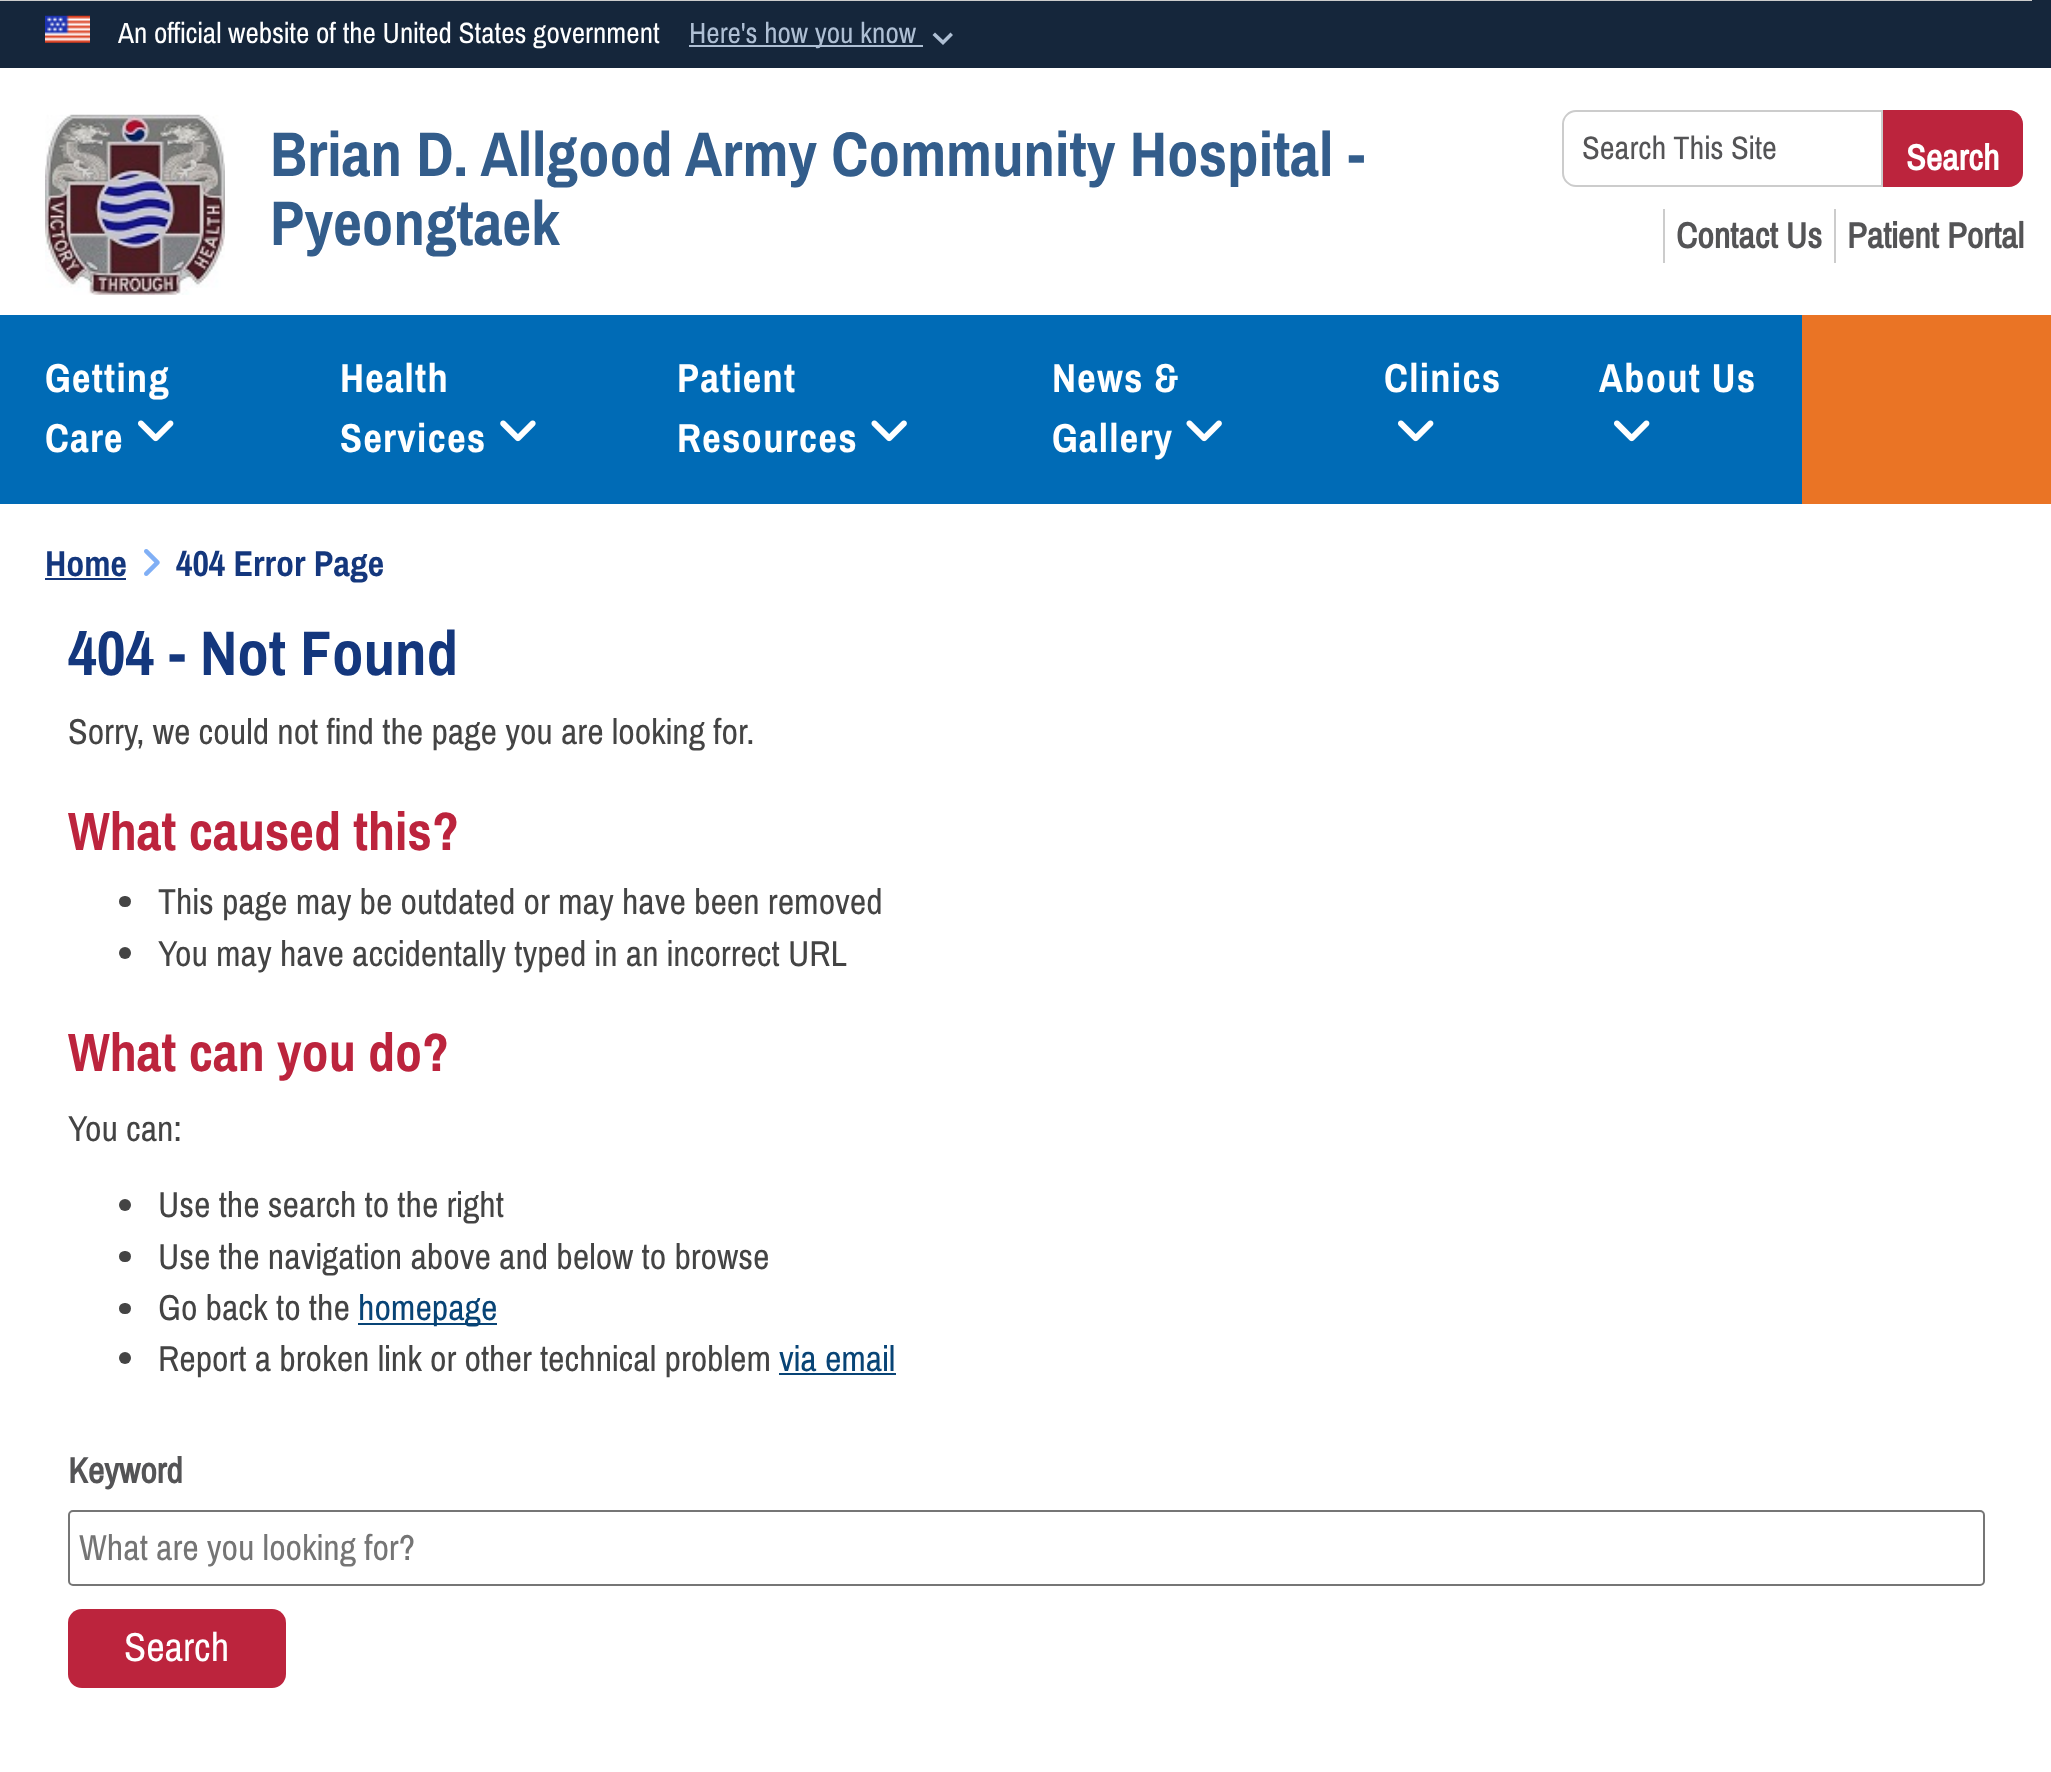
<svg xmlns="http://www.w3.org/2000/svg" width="2051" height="1772">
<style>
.a{font:29.25px Archivo Narrow;fill:#fff}
.b{font:29.25px Archivo Narrow;fill:#aebfd4}
.c{font:bold 63px Archivo Narrow;fill:#335d8b}
.d{font:32.5px Archivo Narrow;fill:#545456}
.e{font:bold 36px 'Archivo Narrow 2';fill:#fff}
.f{font:bold 36px 'Archivo Narrow 2';fill:#545456}
.g{font:bold 40.5px Archivo Narrow;letter-spacing:1.25px;fill:#fff}
.h{font:bold 36px Archivo Narrow;fill:#14377d}
.i{font:bold 63px Archivo Narrow;fill:#14377d}
.j{font:36px Archivo Narrow;fill:#444}
.k{font:bold 54px Archivo Narrow;fill:#bc243d}
.l{font:36px Archivo Narrow;fill:#084476}
.m{font:36px Archivo Narrow;fill:#757575}
.n{font:40.5px Archivo Narrow;fill:#fff}
</style>
<rect width="100%" height="100%" fill="#fff"/>
<path fill="#15263b" d="M0 0h2051v68H0z"/>
<image href="1.png" x="45" y="15" width="45" height="28"/>
<path fill="#aebfd4" d="M689 45h234v2H689z"/>
<path fill="#aebfd4" d="M950.5 32.5l-7.5 7.5l-8-7.5l-2.5 2.5l10.5 10l10-10z"/>
<path fill="#ccc" d="M0 0h2032v1H0z"/>
<image href="2.png" x="45" y="114" width="180" height="181"/>
<path fill="none" stroke="#ccc" stroke-width="2" d="M1576 111h306v75h-306c-7 0-13-6-13-13v-49c0-7 6-13 13-13z"/>
<path fill="#bc243d" d="M1883 110h126c7.5 0 14 6.5 14 14v49c0 7.5-6.5 14-14 14h-126z"/>
<path fill="#ccc" d="M1663 209h2v54H1663z"/>
<path fill="#ccc" d="M1834 209h2v54H1834z"/>
<path fill="#006bb6" d="M0 315h1802v189H0z"/>
<image href="3.png" x="138" y="420" width="36" height="22"/>
<image href="4.png" x="500" y="420" width="36" height="22"/>
<image href="5.png" x="871" y="420" width="36" height="22"/>
<image href="5.png" x="1186" y="420" width="36" height="22"/>
<image href="3.png" x="1398" y="420" width="36" height="22"/>
<image href="3.png" x="1614" y="420" width="36" height="22"/>
<path fill="#ea7425" d="M1802 315h249v189H1802z"/>
<path fill="#14377d" d="M45 578h81v2H45z"/>
<image href="6.png" x="144" y="549" width="16" height="27"/>
<rect fill="#444" x="119" y="896" width="12" height="11" rx="5.5"/>
<circle fill="#444" cx="125" cy="953" r="6"/>
<circle fill="#444" cx="125" cy="1205" r="6"/>
<rect fill="#444" x="119" y="1251" width="12" height="11" rx="5.5"/>
<rect fill="#444" x="119" y="1303" width="12" height="11" rx="5.5"/>
<path fill="#084476" d="M358 1323h139v2H358z"/>
<circle fill="#444" cx="125" cy="1358" r="6"/>
<path fill="#084476" d="M779 1373h117v2H779z"/>
<rect fill="none" stroke="#767676" stroke-width="2" x="69" y="1511" width="1915" height="74" rx="4"/>
<rect fill="#bc243d" x="68" y="1609" width="218" height="79" rx="14"/>
<text class="a" x="118" y="43">An official website of the United States government</text>
<text class="b" x="689" y="43">Here's how you know</text>
<text class="c" x="270" y="176">Brian D. Allgood Army Community Hospital -</text>
<text class="c" x="270" y="245">Pyeongtaek</text>
<text class="d" x="1582" y="159">Search This Site</text>
<text class="e" x="1906" y="170">Search</text>
<text class="f" x="1676" y="248">Contact Us</text>
<text class="f" x="1847" y="248">Patient Portal</text>
<text class="g" x="45" y="392">Getting</text>
<text class="g" x="45" y="452">Care</text>
<text class="g" x="340" y="392">Health</text>
<text class="g" x="340" y="452">Services</text>
<text class="g" x="677" y="392">Patient</text>
<text class="g" x="677" y="452">Resources</text>
<text class="g" x="1052" y="392">News &amp;</text>
<text class="g" x="1052" y="452">Gallery</text>
<text class="g" x="1384" y="392">Clinics</text>
<text class="g" x="1599" y="392">About Us</text>
<text class="h" x="45" y="576">Home</text>
<text class="h" x="176" y="576">404 Error Page</text>
<text class="i" x="68" y="675">404 - Not Found</text>
<text class="j" x="68" y="744">Sorry, we could not find the page you are looking for.</text>
<text class="k" x="68" y="850">What caused this?</text>
<text class="j" x="158" y="914">This page may be outdated or may have been removed</text>
<text class="j" x="158" y="966">You may have accidentally typed in an incorrect URL</text>
<text class="k" x="68" y="1071">What can you do?</text>
<text class="j" x="68" y="1141">You can:</text>
<text class="j" x="158" y="1217">Use the search to the right</text>
<text class="j" x="158" y="1269">Use the navigation above and below to browse</text>
<text class="j" x="158" y="1320">Go back to the</text>
<text class="l" x="358" y="1320">homepage</text>
<text class="j" x="158" y="1371">Report a broken link or other technical problem</text>
<text class="l" x="779" y="1371">via email</text>
<text class="f" x="68" y="1483">Keyword</text>
<text class="m" x="79" y="1560">What are you looking for?</text>
<text class="n" x="124" y="1661">Search</text>
</svg>
